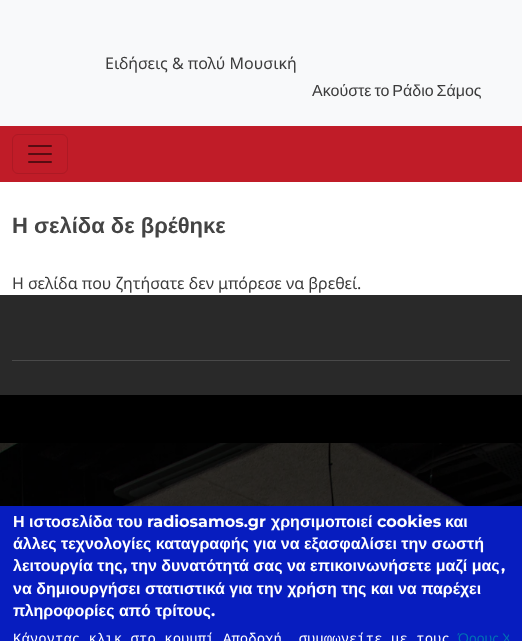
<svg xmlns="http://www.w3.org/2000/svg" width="522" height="641">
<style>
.a{font:16px Noto Sans;fill:#3b3b3b}
.b{font:16px Liberation Sans;fill:#3b3b3b}
.c{font:bold 22px Liberation Sans;fill:#444}
.d{font:bold 16px Liberation Sans;fill:#fff}
.e{font:bold 16px Montserrat;fill:#fff}
.f{font:14px Liberation Mono;fill:#fff}
.g{font:14px Liberation Sans;fill:#0071b3}
</style>
<defs>
<clipPath id="clip1"><path d="M13 627h496v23H13z"/></clipPath>
</defs>
<rect width="100%" height="100%" fill="#fff"/>
<path fill="#f8f9fa" d="M0 0h522v126H0z"/>
<path fill="#c01c28" d="M0 126h522v56H0z"/>
<rect fill="none" stroke="#ad1924" x="12.5" y="134.5" width="55" height="39" rx="5.5"/>
<image href="1.png" x="28" y="145" width="24" height="18"/>
<path fill="#292929" d="M0 295h522v100H0z"/>
<path fill="#494949" d="M12 360h498v1H12z"/>
<path fill="#000" d="M0 395h522v48H0z"/>
<image href="2.png" x="0" y="443" width="522" height="63"/>
<path fill="#071dbf" d="M0 506h522v135H0z"/>
<text class="a" x="105" y="69">Ειδήσεις &amp; πολύ Μουσική</text>
<text class="b" x="312" y="96" word-spacing="-1.5">Ακούστε το Ράδιο Σάμος</text>
<text class="c" x="12" y="233">Η σελίδα δε βρέθηκε</text>
<text class="a" x="12" y="289">Η σελίδα που ζητήσατε δεν μπόρεσε να βρεθεί.</text>
<text class="d" x="13" y="527">Η ιστοσελίδα του</text>
<text class="e" x="147" y="527">radiosamos.gr</text>
<text class="d" x="271" y="527">χρησιμοποιεί</text>
<text class="e" x="377" y="527">cookies</text>
<text class="d" x="445" y="527">και</text>
<text class="d" x="13" y="549">άλλες τεχνολογίες καταγραφής για να εξασφαλίσει την σωστή</text>
<text class="d" x="13" y="571">λειτουργία της</text>
<text class="e" x="123" y="571">,</text>
<text class="d" x="131" y="571">την δυνατότητά σας να επικοινωνήσετε μαζί μας</text>
<text class="e" x="501" y="571">,</text>
<text class="d" x="13" y="594">να δημιουργήσει στατιστικά για την χρήση της και να παρέχει</text>
<text class="d" x="13" y="616">πληροφορίες από τρίτους</text>
<text class="e" x="211" y="616">.</text>
<text class="f" x="13" y="643">Κάνοντας κλικ στο κουμπί Αποδοχή, συμφωνείτε με τους</text>
<g clip-path="url(#clip1)">
<text class="g" x="458" y="643" word-spacing="-1">Όρους Χ</text>
</g>
</svg>
